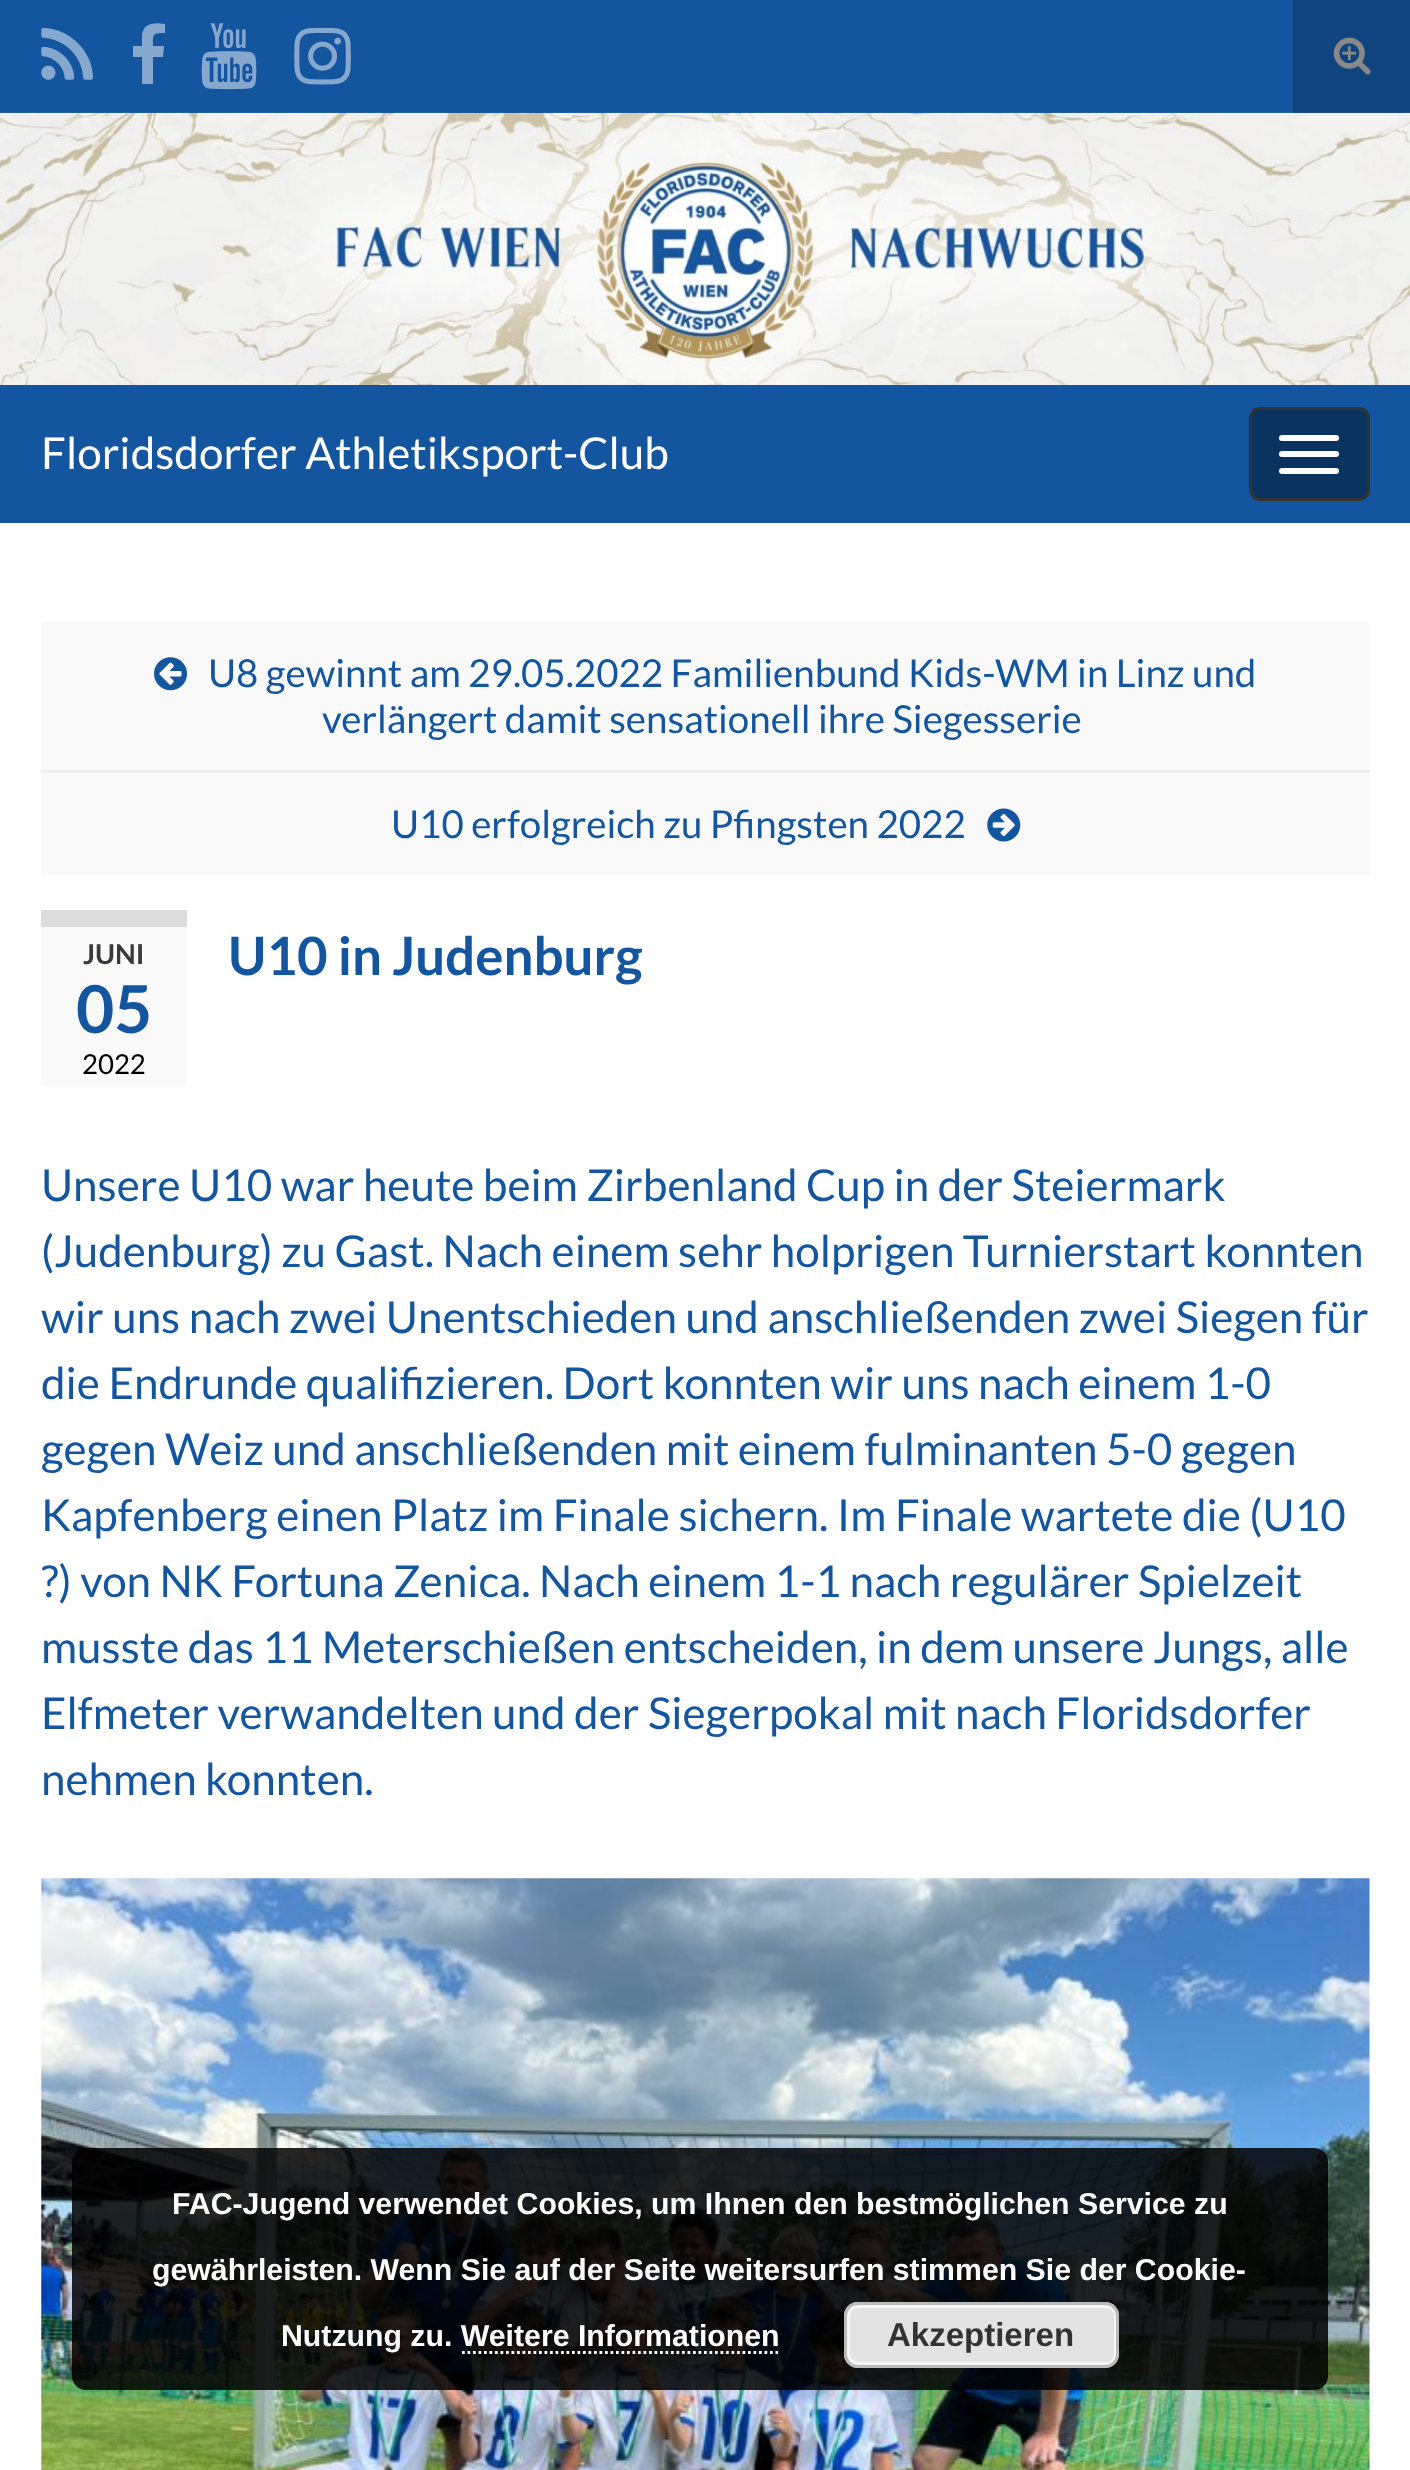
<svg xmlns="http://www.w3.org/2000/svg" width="1410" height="2470">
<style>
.a{font:44px Lato;fill:#fff}
.b{font:38.5px Lato;fill:#13559f}
.c{font:bold 27.5px Lato;fill:#3b383d}
.d{font:bold 66px Lato;fill:#13559f}
.e{font:27.5px Lato;fill:#000}
.f{font:bold 52.75px Lato;fill:#13559f}
.g{font:44px Lato;fill:#13559f}
.h{font:bold 30.25px Liberation Sans;fill:#fff}
.i{font:bold 33px Liberation Sans;fill:#333}
</style>
<rect width="100%" height="100%" fill="#fff"/>
<path fill="#13559f" d="M0 0h1293v113H0z"/>
<image href="1.png" x="41" y="27" width="53" height="53"/>
<path fill="#87a8ce" d="M165 24v9c-13 0-12 1-12 13h11l-1 11h-10v27h-11v-27h-9v-11h9v-12c2-11 13-12 23-10z"/>
<image href="2.png" x="201" y="23" width="56" height="67"/>
<image href="3.png" x="294" y="27" width="57" height="58"/>
<path fill="#0f447f" d="M1293 0h117v113H1293z"/>
<image href="4.png" x="1333" y="37" width="38" height="38"/>
<image href="5.png" x="0" y="112" width="1410" height="273"/>
<path fill="#13559f" d="M0 385h1410v138H0z"/>
<rect fill="#0b335f" stroke="#333" stroke-width="3" x="1250.5" y="408.5" width="118" height="91" rx="9.5"/>
<rect fill="#fff" x="1279" y="435" width="60" height="6" rx="3"/>
<rect fill="#fff" x="1279" y="451" width="60" height="6" rx="3"/>
<rect fill="#fff" x="1279" y="468" width="60" height="6" rx="3"/>
<path fill="#f9f9f9" d="M41 622h1329v253H41z"/>
<image href="6.png" x="154" y="657" width="33" height="34"/>
<path fill="#eee" d="M41 770h1329v3H41z"/>
<image href="7.png" x="987" y="808" width="34" height="34"/>
<path fill="#f9f9f9" d="M41 927h146v159H41z"/>
<path fill="#dbdbdb" d="M41 910h146v17H41z"/>
<image href="8.png" x="41" y="1878" width="1329" height="592"/>
<rect fill="#000000d9" x="72" y="2148" width="1256" height="242" rx="14"/>
<rect fill="#e3e3e3" x="844" y="2302" width="275" height="66" rx="14"/>
<rect fill="none" stroke="#f6f6f6" stroke-width="3" x="848.5" y="2306.5" width="267" height="57" rx="9.5"/>
<rect fill="none" stroke="#bbb" stroke-width="3" x="845.5" y="2303.5" width="272" height="63" rx="12.5"/>
<path fill="none" stroke="#fff" stroke-width="2.8" stroke-dasharray="2.75 2.75" d="M462 2352.5h316"/>
<text class="a" x="41" y="469">Floridsdorfer Athletiksport-Club</text>
<text class="b" x="208" y="687">U8 gewinnt am 29.05.2022 Familienbund Kids-WM in Linz und</text>
<text class="b" x="322" y="733">verlängert damit sensationell ihre Siegesserie</text>
<text class="b" x="391" y="838">U10 erfolgreich zu Pfingsten 2022</text>
<text class="c" x="83" y="964">JUNI</text>
<text class="d" x="76" y="1033">05</text>
<text class="e" x="82" y="1074">2022</text>
<text class="f" x="228" y="975">U10 in Judenburg</text>
<text class="g" x="41" y="1201">Unsere U10 war heute beim Zirbenland Cup in der Steiermark</text>
<text class="g" x="41" y="1267">(Judenburg) zu Gast. Nach einem sehr holprigen Turnierstart konnten</text>
<text class="g" x="41" y="1333">wir uns nach zwei Unentschieden und anschließenden zwei Siegen für</text>
<text class="g" x="41" y="1399">die Endrunde qualifizieren. Dort konnten wir uns nach einem 1-0</text>
<text class="g" x="41" y="1465">gegen Weiz und anschließenden mit einem fulminanten 5-0 gegen</text>
<text class="g" x="41" y="1531">Kapfenberg einen Platz im Finale sichern. Im Finale wartete die (U10</text>
<text class="g" x="41" y="1597">?) von NK Fortuna Zenica. Nach einem 1-1 nach regulärer Spielzeit</text>
<text class="g" x="41" y="1663">musste das 11 Meterschießen entscheiden, in dem unsere Jungs, alle</text>
<text class="g" x="41" y="1729">Elfmeter verwandelten und der Siegerpokal mit nach Floridsdorfer</text>
<text class="g" x="41" y="1795">nehmen konnten.</text>
<text class="h" x="172" y="2214">FAC-Jugend verwendet Cookies, um Ihnen den bestmöglichen Service zu</text>
<text class="h" x="152" y="2280">gewährleisten. Wenn Sie auf der Seite weitersurfen stimmen Sie der Cookie-</text>
<text class="h" x="281" y="2346">Nutzung zu. Weitere Informationen</text>
<text class="i" x="887" y="2346">Akzeptieren</text>
</svg>
